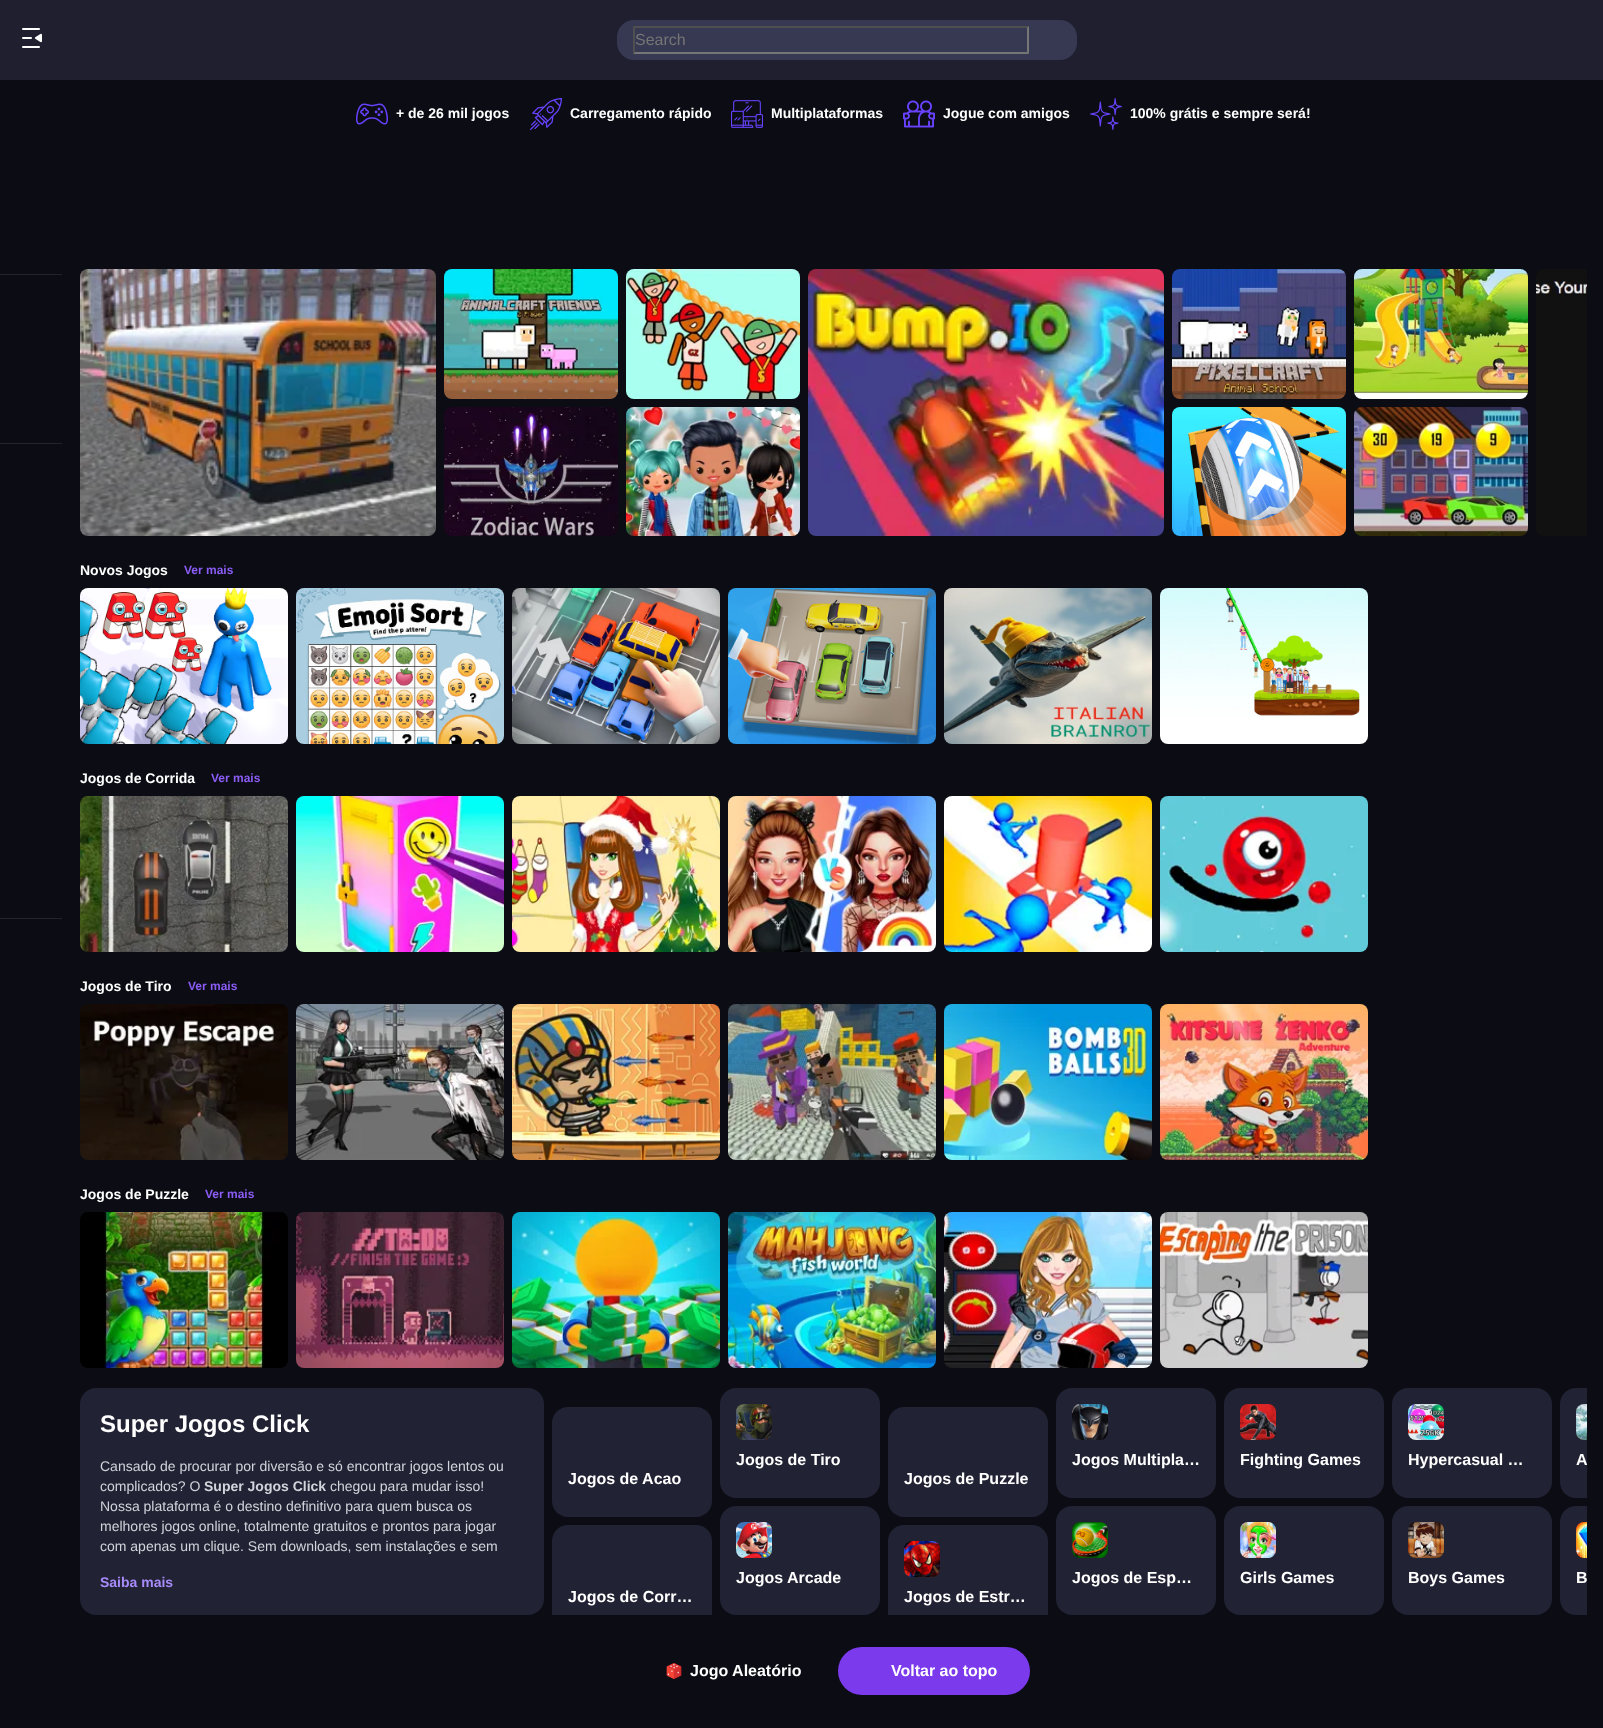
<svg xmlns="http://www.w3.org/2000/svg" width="1603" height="1728">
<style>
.a{font:16px Liberation Sans;fill:#757575}
.b{font:bold 14px Liberation Sans;fill:#fff}
.c{font:bold 12px Liberation Sans;fill:#8b5cf6}
.d{font:bold 24px Liberation Sans;fill:#fff}
.e{font:14px Liberation Sans;fill:#d1d5db}
.f{font:bold 14px Liberation Sans;fill:#d1d5db}
.g{font:bold 14px Liberation Sans;fill:#a78bfa}
.h{font:bold 16px Liberation Sans;fill:#fff}
</style>
<rect width="100%" height="100%" fill="#0c0d14"/>
<path fill="#1f1f30" d="M0 0h1603v80H0z"/>
<image href="1.png" x="22" y="28" width="20" height="20"/>
<rect fill="#373952" x="617" y="20" width="460" height="40" rx="17"/>
<path fill="#4f4f4f" d="M633 26h396l-2 2h-392z"/>
<path fill="#767676" d="M1029 26v28l-2-2v-24z"/>
<path fill="#767676" d="M1029 54h-396l2-2h392z"/>
<path fill="#4f4f4f" d="M633 54v-28l2 2v24z"/>
<path fill="#23242b" d="M0 274h62v1H0z"/>
<path fill="#23242b" d="M0 443h62v1H0z"/>
<path fill="#23242b" d="M0 918h62v1H0z"/>
<image href="2.png" x="356" y="103" width="32" height="22"/>
<image href="3.png" x="530" y="98" width="32" height="32"/>
<image href="4.png" x="731" y="100" width="32" height="28"/>
<image href="5.png" x="903" y="100" width="32" height="28"/>
<image href="6.png" x="1090" y="98" width="32" height="32"/>
<image href="7.png" x="80" y="269" width="356" height="267"/>
<image href="8.png" x="444" y="269" width="174" height="130"/>
<image href="9.png" x="626" y="269" width="174" height="130"/>
<image href="10.png" x="444" y="407" width="174" height="129"/>
<image href="11.png" x="626" y="407" width="174" height="129"/>
<image href="12.png" x="808" y="269" width="356" height="267"/>
<image href="13.png" x="1172" y="269" width="174" height="130"/>
<image href="14.png" x="1354" y="269" width="174" height="130"/>
<image href="15.png" x="1172" y="407" width="174" height="129"/>
<image href="16.png" x="1354" y="407" width="174" height="129"/>
<image href="17.png" x="1536" y="269" width="51" height="267"/>
<image href="18.png" x="80" y="588" width="208" height="156"/>
<image href="19.png" x="296" y="588" width="208" height="156"/>
<image href="20.png" x="512" y="588" width="208" height="156"/>
<image href="21.png" x="728" y="588" width="208" height="156"/>
<image href="22.png" x="944" y="588" width="208" height="156"/>
<image href="23.png" x="1160" y="588" width="208" height="156"/>
<image href="24.png" x="80" y="796" width="208" height="156"/>
<image href="25.png" x="296" y="796" width="208" height="156"/>
<image href="26.png" x="512" y="796" width="208" height="156"/>
<image href="27.png" x="728" y="796" width="208" height="156"/>
<image href="28.png" x="944" y="796" width="208" height="156"/>
<image href="29.png" x="1160" y="796" width="208" height="156"/>
<image href="30.png" x="80" y="1004" width="208" height="156"/>
<image href="31.png" x="296" y="1004" width="208" height="156"/>
<image href="32.png" x="512" y="1004" width="208" height="156"/>
<image href="33.png" x="728" y="1004" width="208" height="156"/>
<image href="34.png" x="944" y="1004" width="208" height="156"/>
<image href="35.png" x="1160" y="1004" width="208" height="156"/>
<image href="36.png" x="80" y="1212" width="208" height="156"/>
<image href="37.png" x="296" y="1212" width="208" height="156"/>
<image href="38.png" x="512" y="1212" width="208" height="156"/>
<image href="39.png" x="728" y="1212" width="208" height="156"/>
<image href="40.png" x="944" y="1212" width="208" height="156"/>
<image href="41.png" x="1160" y="1212" width="208" height="156"/>
<rect fill="#212233" x="80" y="1388" width="464" height="227" rx="16"/>
<rect fill="#212233" x="552" y="1407" width="160" height="110" rx="16"/>
<path fill="#212233" d="M568 1525h128c9 0 16 7 16 16v74h-160v-74c0-9 7-16 16-16z"/>
<rect fill="#212233" x="720" y="1388" width="160" height="110" rx="16"/>
<image href="42.png" x="736" y="1404" width="36" height="36"/>
<rect fill="#212233" x="720" y="1506" width="160" height="109" rx="16"/>
<image href="43.png" x="736" y="1522" width="36" height="36"/>
<rect fill="#212233" x="888" y="1407" width="160" height="110" rx="16"/>
<path fill="#212233" d="M904 1525h128c9 0 16 7 16 16v74h-160v-74c0-9 7-16 16-16z"/>
<image href="44.png" x="904" y="1541" width="36" height="36"/>
<rect fill="#212233" x="1056" y="1388" width="160" height="110" rx="16"/>
<image href="45.png" x="1072" y="1404" width="36" height="36"/>
<rect fill="#212233" x="1056" y="1506" width="160" height="109" rx="16"/>
<image href="46.png" x="1072" y="1522" width="36" height="36"/>
<rect fill="#212233" x="1224" y="1388" width="160" height="110" rx="16"/>
<image href="47.png" x="1240" y="1404" width="36" height="36"/>
<rect fill="#212233" x="1224" y="1506" width="160" height="109" rx="16"/>
<image href="48.png" x="1240" y="1522" width="36" height="36"/>
<rect fill="#212233" x="1392" y="1388" width="160" height="110" rx="16"/>
<image href="49.png" x="1408" y="1404" width="36" height="36"/>
<rect fill="#212233" x="1392" y="1506" width="160" height="109" rx="16"/>
<image href="50.png" x="1408" y="1522" width="36" height="36"/>
<path fill="#212233" d="M1576 1388h11v110h-11c-9 0-16-7-16-16v-78c0-9 7-16 16-16z"/>
<image href="51.png" x="1576" y="1404" width="11" height="36"/>
<path fill="#212233" d="M1576 1506h11v109h-11c-9 0-16-7-16-16v-77c0-9 7-16 16-16z"/>
<image href="52.png" x="1576" y="1522" width="11" height="36"/>
<image href="53.png" x="666" y="1663" width="16" height="16"/>
<rect fill="#7c3aed" x="838" y="1647" width="192" height="48" rx="24"/>
<text class="a" x="635" y="45">Search</text>
<text class="b" x="396" y="118">+ de 26 mil jogos</text>
<text class="b" x="570" y="118">Carregamento rápido</text>
<text class="b" x="771" y="118">Multiplataformas</text>
<text class="b" x="943" y="118">Jogue com amigos</text>
<text class="b" x="1130" y="118">100% grátis e sempre será!</text>
<text class="b" x="80" y="575">Novos Jogos</text>
<text class="c" x="184" y="574">Ver mais</text>
<text class="b" x="80" y="783">Jogos de Corrida</text>
<text class="c" x="211" y="782">Ver mais</text>
<text class="b" x="80" y="991">Jogos de Tiro</text>
<text class="c" x="188" y="990">Ver mais</text>
<text class="b" x="80" y="1199">Jogos de Puzzle</text>
<text class="c" x="205" y="1198">Ver mais</text>
<text class="d" x="100" y="1432">Super Jogos Click</text>
<text class="e" x="100" y="1471">Cansado de procurar por diversão e só encontrar jogos lentos ou</text>
<text class="e" x="100" y="1491">complicados? O</text>
<text class="f" x="204" y="1491">Super Jogos Click</text>
<text class="e" x="330" y="1491">chegou para mudar isso!</text>
<text class="e" x="100" y="1511">Nossa plataforma é o destino definitivo para quem busca os</text>
<text class="e" x="100" y="1531">melhores jogos online, totalmente gratuitos e prontos para jogar</text>
<text class="e" x="100" y="1551">com apenas um clique. Sem downloads, sem instalações e sem</text>
<text class="g" x="100" y="1587">Saiba mais</text>
<text class="h" x="568" y="1484">Jogos de Acao</text>
<text class="h" x="568" y="1602">Jogos de Corr…</text>
<text class="h" x="736" y="1465">Jogos de Tiro</text>
<text class="h" x="736" y="1583">Jogos Arcade</text>
<text class="h" x="904" y="1484">Jogos de Puzzle</text>
<text class="h" x="904" y="1602">Jogos de Estr…</text>
<text class="h" x="1072" y="1465">Jogos Multipla…</text>
<text class="h" x="1072" y="1583">Jogos de Esp…</text>
<text class="h" x="1240" y="1465">Fighting Games</text>
<text class="h" x="1240" y="1583">Girls Games</text>
<text class="h" x="1408" y="1465">Hypercasual …</text>
<text class="h" x="1408" y="1583">Boys Games</text>
<text class="h" x="1576" y="1465">A</text>
<text class="h" x="1576" y="1583">B</text>
<text class="h" x="690" y="1676">Jogo Aleatório</text>
<text class="h" x="891" y="1676">Voltar ao topo</text>
</svg>
